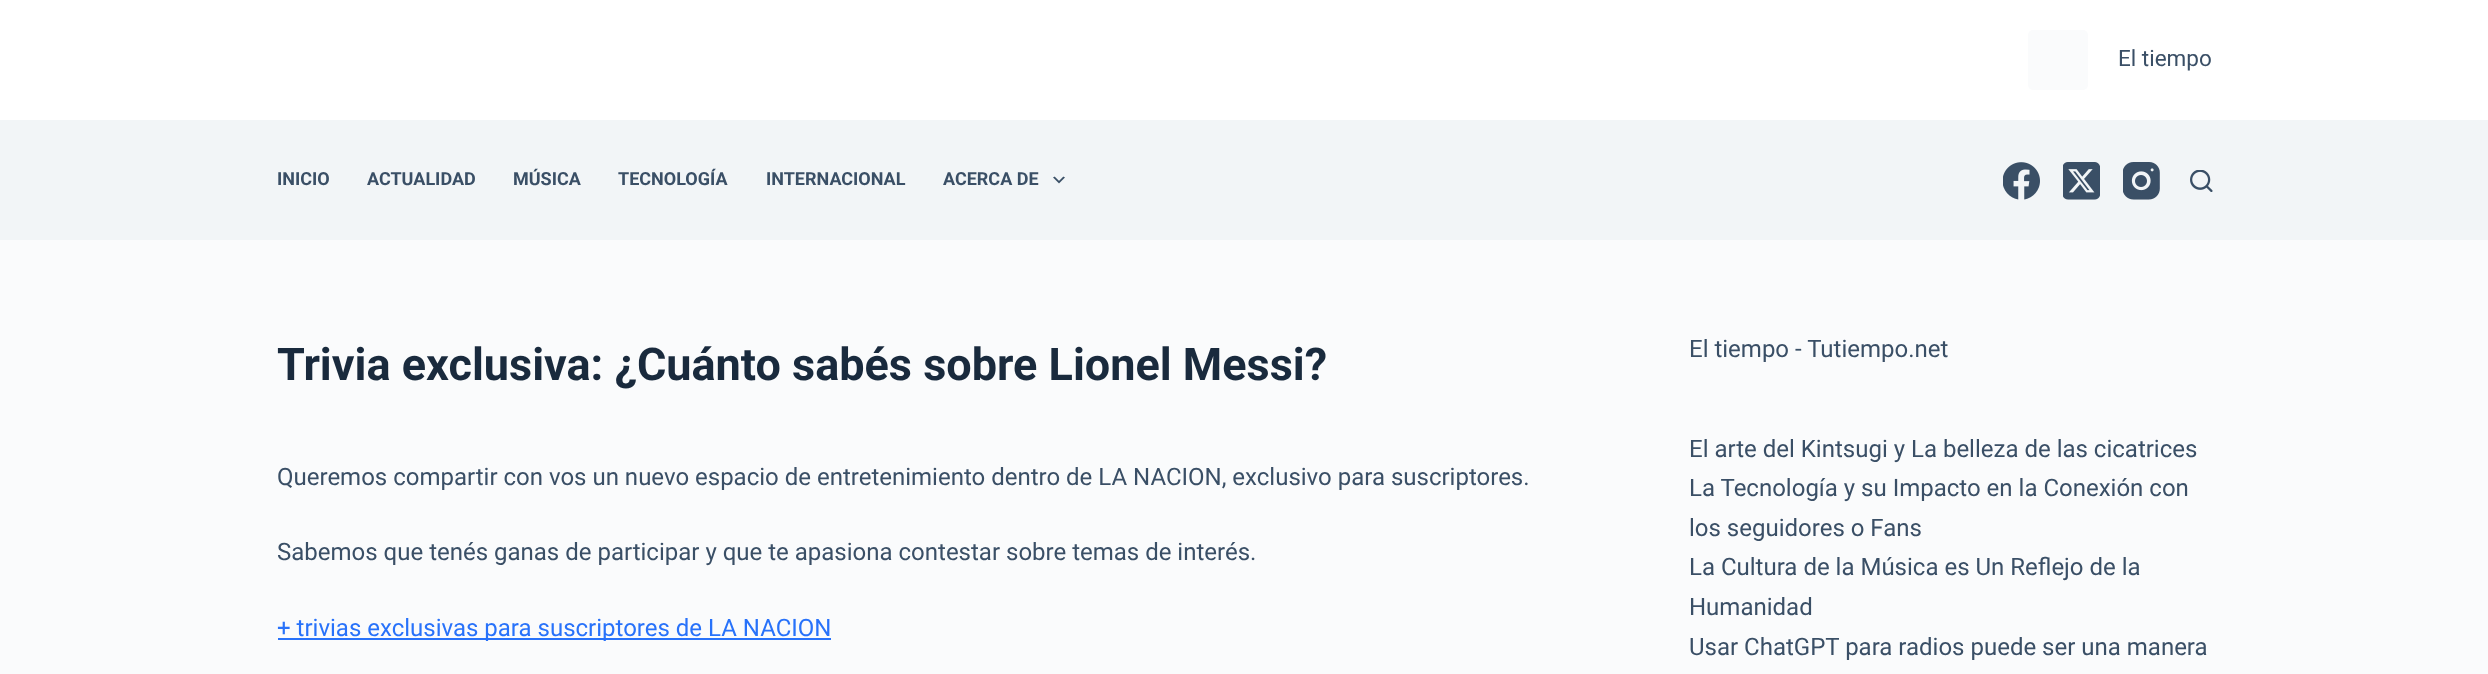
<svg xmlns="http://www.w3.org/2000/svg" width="2488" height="674">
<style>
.a{font:22.5px Roboto;fill:#3a4f66}
.b{font:bold 18px Roboto;fill:#3a4f66}
.c{font:bold 45px Roboto;fill:#192a3d}
.d{font:24px Roboto;fill:#3a4f66}
.e{font:24px Roboto;fill:#2872fa}
</style>
<rect width="100%" height="100%" fill="#fafbfc"/>
<path fill="#fff" d="M0 0h2488v120H0z"/>
<rect fill="#fafbfc" x="2028" y="30" width="60" height="60" rx="5"/>
<path fill="#f2f5f7" d="M0 120h2488v120H0z"/>
<image href="1.png" x="1053" y="176" width="12" height="8"/>
<image href="2.png" x="2003" y="162" width="37" height="38"/>
<image href="3.png" x="2063" y="162" width="37" height="38"/>
<image href="4.png" x="2123" y="162" width="37" height="38"/>
<image href="5.png" x="2190" y="170" width="23" height="22"/>
<path fill="#2872fa" d="M278 638h553v2H278z"/>
<text class="a" x="2118" y="66">El tiempo</text>
<text class="b" x="277" y="185">INICIO</text>
<text class="b" x="367" y="185">ACTUALIDAD</text>
<text class="b" x="513" y="185">MÚSICA</text>
<text class="b" x="618" y="185">TECNOLOGÍA</text>
<text class="b" x="766" y="185">INTERNACIONAL</text>
<text class="b" x="943" y="185">ACERCA DE</text>
<text class="c" x="277" y="380">Trivia exclusiva: ¿Cuánto sabés sobre Lionel Messi?</text>
<text class="d" x="277" y="485">Queremos compartir con vos un nuevo espacio de entretenimiento dentro de LA NACION, exclusivo para suscriptores.</text>
<text class="d" x="277" y="560">Sabemos que tenés ganas de participar y que te apasiona contestar sobre temas de interés.</text>
<text class="e" x="277" y="636">+ trivias exclusivas para suscriptores de LA NACION</text>
<text class="d" x="1689" y="357">El tiempo - Tutiempo.net</text>
<text class="d" x="1689" y="457">El arte del Kintsugi y La belleza de las cicatrices</text>
<text class="d" x="1689" y="496">La Tecnología y su Impacto en la Conexión con</text>
<text class="d" x="1689" y="536">los seguidores o Fans</text>
<text class="d" x="1689" y="575">La Cultura de la Música es Un Reflejo de la</text>
<text class="d" x="1689" y="615">Humanidad</text>
<text class="d" x="1689" y="655">Usar ChatGPT para radios puede ser una manera</text>
</svg>
